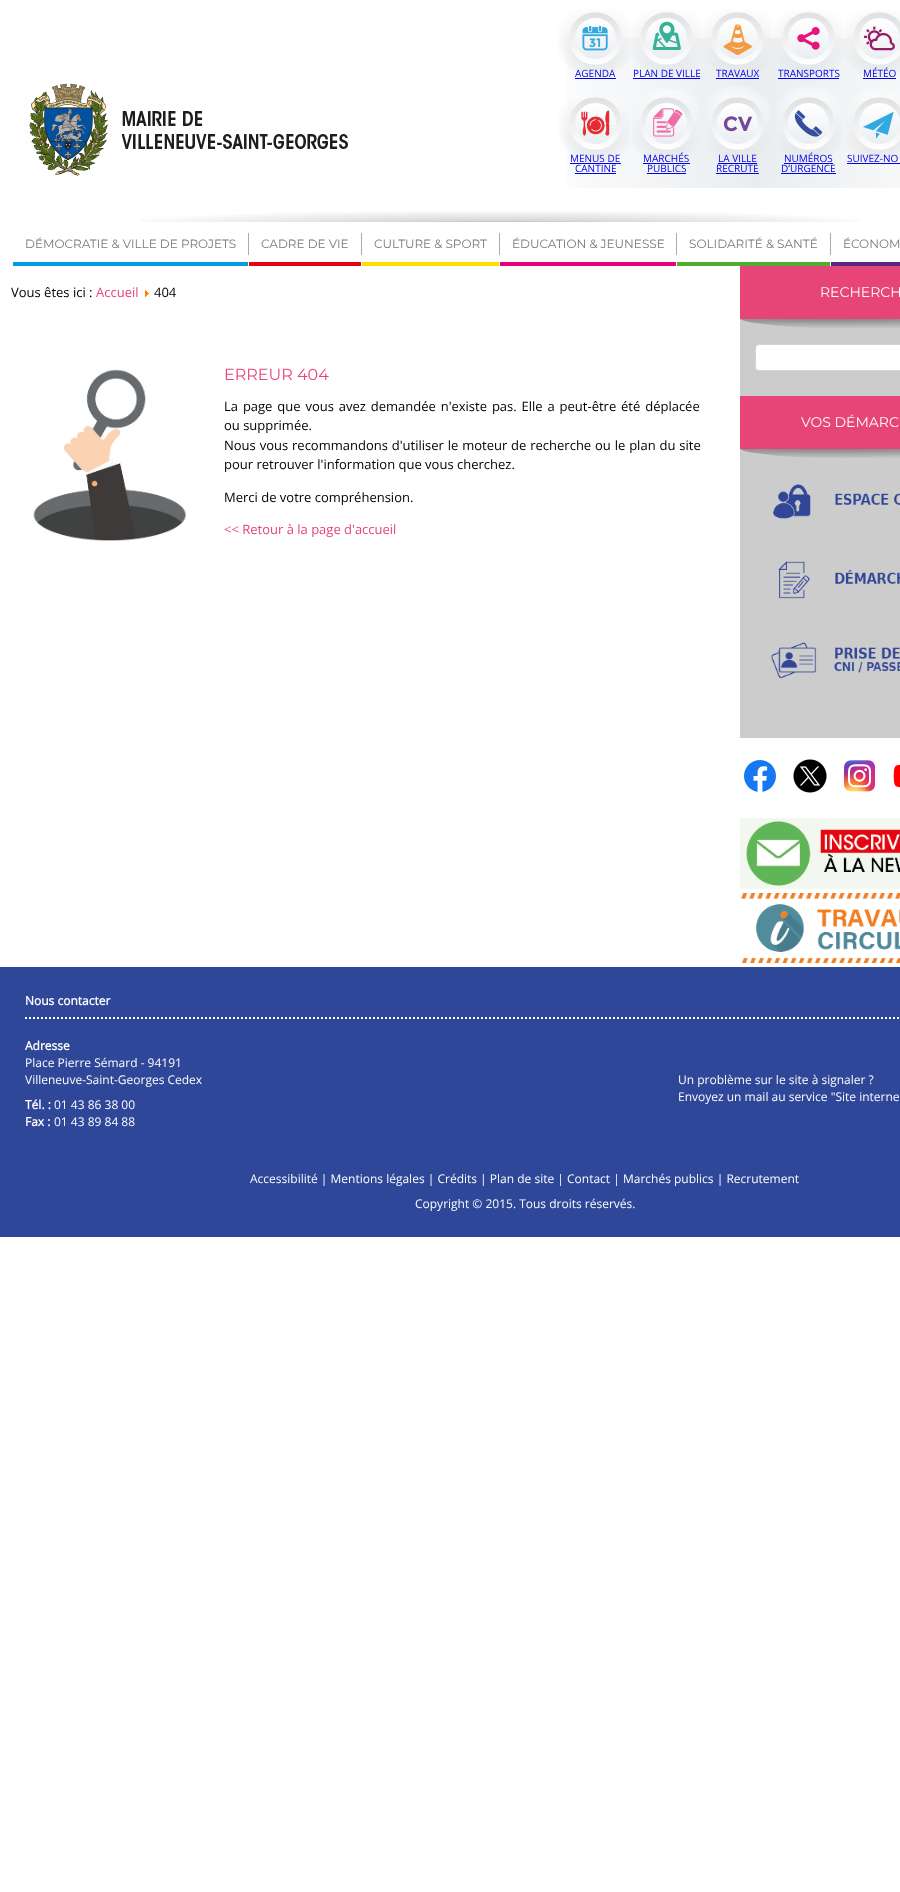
<svg xmlns="http://www.w3.org/2000/svg" width="900" height="1892">
<style>
.a{font:10px Open Sans;fill:#00e}
.b{font:100 12px Montserrat;fill:#797979}
.c{font:13px Open Sans;fill:#000}
.d{font:13px Open Sans;fill:#e74577}
.e{font:100 16px Montserrat;fill:#e74577}
.f{font:100 14px Montserrat;fill:#fcfcfd}
.g{font:bold 12px Open Sans;fill:#fcfcfd}
.h{font:12px Open Sans;fill:#fcfcfd}
</style>
<rect width="100%" height="100%" fill="#fff"/>
<image href="1.png" x="567" y="38" width="333" height="150"/>
<image href="2.png" x="558" y="10" width="75" height="68"/>
<path fill="#00e" d="M575 78h41v1H575z"/>
<image href="3.png" x="632" y="10" width="72" height="67"/>
<path fill="#00e" d="M633 78h67v1H633z"/>
<image href="4.png" x="703" y="10" width="72" height="66"/>
<path fill="#00e" d="M716 78h43v1H716z"/>
<image href="5.png" x="774" y="10" width="72" height="67"/>
<path fill="#00e" d="M778 78h61v1H778z"/>
<image href="6.png" x="845" y="10" width="55" height="67"/>
<path fill="#00e" d="M863 78h33v1H863z"/>
<image href="7.png" x="558" y="97" width="73" height="66"/>
<path fill="#00e" d="M570 163h51v1H570z"/>
<path fill="#00e" d="M575 173h41v1H575z"/>
<image href="8.png" x="632" y="89" width="67" height="73"/>
<path fill="#00e" d="M643 163h47v1H643z"/>
<path fill="#00e" d="M647 173h39v1H647z"/>
<image href="9.png" x="706" y="86" width="65" height="75"/>
<path fill="#00e" d="M718 163h39v1H718z"/>
<path fill="#00e" d="M716 173h43v1H716z"/>
<image href="10.png" x="777" y="87" width="66" height="75"/>
<path fill="#00e" d="M784 163h49v1H784z"/>
<path fill="#00e" d="M781 173h55v1H781z"/>
<image href="11.png" x="846" y="89" width="54" height="73"/>
<path fill="#00e" d="M847 163h53v1H847z"/>
<image href="12.png" x="140" y="211" width="721" height="11"/>
<path fill="#009ee0" d="M13 262h235v4H13z"/>
<path fill="#a1adba" d="M248 233h1v22H248z"/>
<path fill="#e30513" d="M249 262h112v4H249z"/>
<path fill="#a1adba" d="M361 233h1v22H361z"/>
<path fill="#fd0" d="M362 262h137v4H362z"/>
<path fill="#a1adba" d="M499 233h1v22H499z"/>
<path fill="#e5007d" d="M500 262h176v4H500z"/>
<path fill="#a1adba" d="M676 233h1v22H676z"/>
<path fill="#51ae32" d="M677 262h153v4H677z"/>
<path fill="#a1adba" d="M830 233h1v22H830z"/>
<path fill="#5c2482" d="M831 262h69v4H831z"/>
<image href="13.png" x="29" y="83" width="319" height="93"/>
<image href="14.png" x="145" y="290" width="4" height="7"/>
<image href="15.png" x="33" y="369" width="154" height="172"/>
<path fill="#ccc" d="M740 328h160v68H740z"/>
<path fill="#e74577" d="M740 266h160v53H740z"/>
<image href="16.png" x="740" y="319" width="160" height="9"/>
<rect fill="#fff" stroke="#ccd6e0" x="755.5" y="344.5" width="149" height="26" rx="3.5"/>
<path fill="#ccc" d="M740 458h160v280H740z"/>
<path fill="#e74577" d="M740 396h160v53H740z"/>
<image href="16.png" x="740" y="449" width="160" height="9"/>
<image href="17.png" x="773" y="484" width="127" height="35"/>
<image href="18.png" x="778" y="561" width="122" height="38"/>
<image href="19.png" x="771" y="642" width="129" height="37"/>
<image href="20.png" x="744" y="760" width="32" height="32"/>
<image href="21.png" x="793" y="759" width="34" height="34"/>
<image href="22.png" x="844" y="760" width="31" height="32"/>
<image href="23.png" x="893" y="764" width="7" height="24"/>
<image href="24.png" x="740" y="818" width="160" height="71"/>
<image href="25.png" x="741" y="893" width="159" height="70"/>
<path fill="#2f4798" d="M0 967h900v270H0z"/>
<path fill="none" stroke="#fff" stroke-width="2" stroke-dasharray="2 2" d="M25 1018h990"/>
<text class="a" x="575" y="77">AGENDA</text>
<text class="a" x="633" y="77">PLAN DE VILLE</text>
<text class="a" x="716" y="77">TRAVAUX</text>
<text class="a" x="778" y="77">TRANSPORTS</text>
<text class="a" x="863" y="77">MÉTÉO</text>
<text class="a" x="570" y="162">MENUS DE</text>
<text class="a" x="575" y="172">CANTINE</text>
<text class="a" x="643" y="162">MARCHÉS</text>
<text class="a" x="647" y="172">PUBLICS</text>
<text class="a" x="718" y="162">LA VILLE</text>
<text class="a" x="716" y="172">RECRUTE</text>
<text class="a" x="784" y="162">NUMÉROS</text>
<text class="a" x="781" y="172">D’URGENCE</text>
<text class="a" x="847" y="162">SUIVEZ-NO</text>
<text class="b" x="25" y="248">DÉMOCRATIE &amp; VILLE DE PROJETS</text>
<text class="b" x="261" y="248">CADRE DE VIE</text>
<text class="b" x="374" y="248">CULTURE &amp; SPORT</text>
<text class="b" x="512" y="248">ÉDUCATION &amp; JEUNESSE</text>
<text class="b" x="689" y="248">SOLIDARITÉ &amp; SANTÉ</text>
<text class="b" x="843" y="248">ÉCONOM</text>
<text class="c" x="11" y="297">Vous êtes ici :</text>
<text class="d" x="96" y="297">Accueil</text>
<text class="c" x="154" y="297">404</text>
<text class="e" x="224" y="380">ERREUR 404</text>
<text class="c" x="224" y="411" word-spacing="1.5">La page que vous avez demandée n'existe pas. Elle a peut-être été déplacée</text>
<text class="c" x="224" y="430">ou supprimée.</text>
<text class="c" x="224" y="450" word-spacing="0.5">Nous vous recommandons d'utiliser le moteur de recherche ou le plan du site</text>
<text class="c" x="224" y="469">pour retrouver l'information que vous cherchez.</text>
<text class="c" x="224" y="502">Merci de votre compréhension.</text>
<text class="d" x="224" y="534">&lt;&lt; Retour à la page d'accueil</text>
<text class="f" x="820" y="297">RECHERCH</text>
<text class="f" x="801" y="427">VOS DÉMARC</text>
<text class="g" x="25" y="1005">Nous contacter</text>
<text class="g" x="25" y="1050">Adresse</text>
<text class="h" x="25" y="1067">Place Pierre Sémard - 94191</text>
<text class="h" x="25" y="1084">Villeneuve-Saint-Georges Cedex</text>
<text class="g" x="25" y="1109">Tél. :</text>
<text class="h" x="54" y="1109">01 43 86 38 00</text>
<text class="g" x="25" y="1126">Fax :</text>
<text class="h" x="54" y="1126">01 43 89 84 88</text>
<text class="h" x="678" y="1084">Un problème sur le site à signaler ?</text>
<text class="h" x="678" y="1101">Envoyez un mail au service "Site interne</text>
<text class="h" x="250" y="1183">Accessibilité | Mentions légales | Crédits | Plan de site | Contact | Marchés publics | Recrutement</text>
<text class="h" x="415" y="1208">Copyright © 2015. Tous droits réservés.</text>
</svg>
